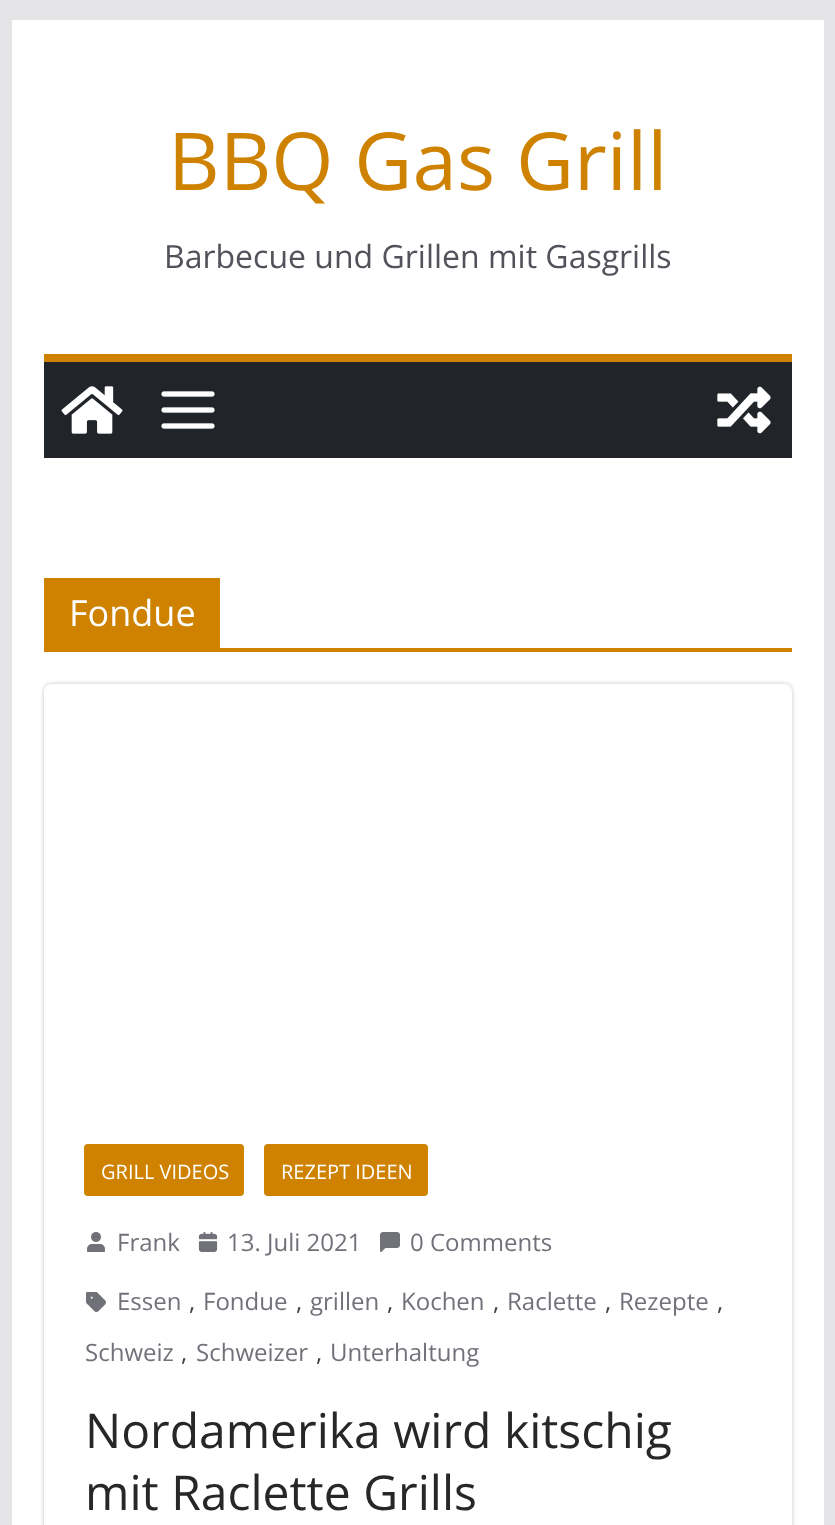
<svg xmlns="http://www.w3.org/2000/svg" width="835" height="1525">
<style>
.a{font:80px Open Sans;fill:#ce8200}
.b{font:32px Open Sans;fill:#52525b}
.c{font:36px Open Sans;fill:#fff}
.d{font:20px Open Sans;fill:#fff}
.e{font:24px Open Sans;fill:#71717a}
.f{font:24px Open Sans;fill:#3f3f46}
.g{font:48px Open Sans;fill:#27272a}
</style>
<defs>
<clipPath id="clip1"><path d="M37 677h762v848h-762zm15 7h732c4.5 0 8 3.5 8 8v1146c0 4.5-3.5 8-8 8h-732c-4.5 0-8-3.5-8-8v-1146c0-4.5 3.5-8 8-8z" clip-rule="evenodd"/></clipPath>
</defs>
<rect width="100%" height="100%" fill="#e4e4e7"/>
<path fill="#fff" d="M12 20h812v1505H12z"/>
<path fill="#212529" d="M44 362h748v96H44z"/>
<path fill="#ce8200" d="M44 354h748v8H44z"/>
<image href="1.png" x="61" y="386" width="62" height="48"/>
<image href="2.png" x="161" y="391" width="54" height="38"/>
<image href="3.png" x="717" y="386" width="54" height="48"/>
<path fill="#ce8200" d="M44 648h748v4H44z"/>
<path fill="#ce8200" d="M44 578h176v70H44z"/>
<g clip-path="url(#clip1)">
<rect fill="#0000003d" filter="blur(2px)" x="44" y="684" width="748" height="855" rx="8"/>
</g>
<rect fill="#ce8200" x="84" y="1144" width="160" height="52" rx="4"/>
<rect fill="#ce8200" x="264" y="1144" width="164" height="52" rx="4"/>
<image href="4.png" x="87" y="1232" width="18" height="20"/>
<image href="5.png" x="198" y="1232" width="20" height="20"/>
<image href="6.png" x="380" y="1232" width="20" height="20"/>
<image href="7.png" x="86" y="1292" width="20" height="20"/>
<text class="a" x="168" y="190">BBQ Gas Grill</text>
<text class="b" x="164" y="268">Barbecue und Grillen mit Gasgrills</text>
<text class="c" x="69" y="626">Fondue</text>
<text class="d" x="101" y="1179">GRILL VIDEOS</text>
<text class="d" x="281" y="1179">REZEPT IDEEN</text>
<text class="e" x="117" y="1251">Frank</text>
<text class="e" x="227" y="1251">13. Juli 2021</text>
<text class="e" x="410" y="1251">0 Comments</text>
<text class="e" x="117" y="1310">Essen</text>
<text class="f" x="189" y="1310">,</text>
<text class="e" x="203" y="1310">Fondue</text>
<text class="f" x="296" y="1310">,</text>
<text class="e" x="310" y="1310">grillen</text>
<text class="f" x="387" y="1310">,</text>
<text class="e" x="401" y="1310">Kochen</text>
<text class="f" x="493" y="1310">,</text>
<text class="e" x="507" y="1310">Raclette</text>
<text class="f" x="605" y="1310">,</text>
<text class="e" x="619" y="1310">Rezepte</text>
<text class="f" x="717" y="1310">,</text>
<text class="e" x="85" y="1361">Schweiz</text>
<text class="f" x="181" y="1361">,</text>
<text class="e" x="196" y="1361">Schweizer</text>
<text class="f" x="316" y="1361">,</text>
<text class="e" x="330" y="1361">Unterhaltung</text>
<text class="g" x="85" y="1448">Nordamerika wird kitschig</text>
<text class="g" x="85" y="1510">mit Raclette Grills</text>
</svg>
